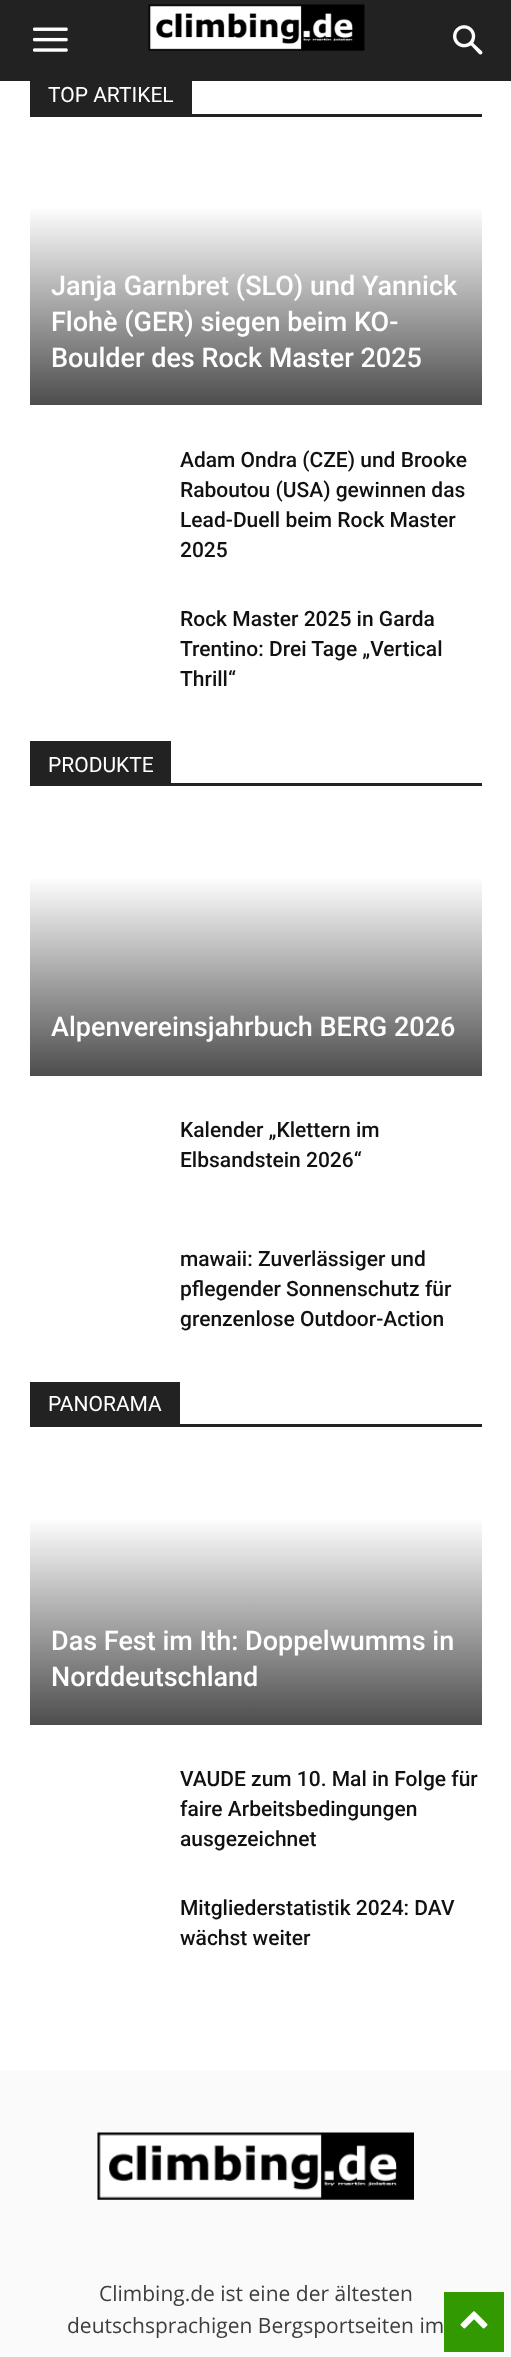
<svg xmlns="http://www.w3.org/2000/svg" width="511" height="2357">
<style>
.a{font:21px Roboto;fill:#fff}
.b{font:500 27px Roboto;fill:#fff}
.c{font:500 21px Roboto;fill:#111}
.d{font:21px Open Sans;fill:#3d3d3d}
</style>
<defs>
<linearGradient id="g1" gradientUnits="userSpaceOnUse" x1="256" y1="206" x2="256" y2="405"><stop offset="0" stop-color="#fff"/><stop offset="1" stop-color="#4d4d4d"/></linearGradient>
<linearGradient id="g2" gradientUnits="userSpaceOnUse" x1="256" y1="876" x2="256" y2="1076"><stop offset="0" stop-color="#fff"/><stop offset="1" stop-color="#4d4d4d"/></linearGradient>
<linearGradient id="g3" gradientUnits="userSpaceOnUse" x1="256" y1="1517" x2="256" y2="1725"><stop offset="0" stop-color="#fff"/><stop offset="1" stop-color="#4d4d4d"/></linearGradient>
</defs>
<rect width="100%" height="100%" fill="#fff"/>
<path fill="#222" d="M0 0h511v81H0z"/>
<image href="1.png" x="33" y="27" width="35" height="25"/>
<image href="2.png" x="148" y="4" width="217" height="47"/>
<image href="3.png" x="453" y="25" width="30" height="30"/>
<path fill="#222" d="M30 114h452v3H30z"/>
<path fill="#222" d="M30 81h162v33H30z"/>
<path fill="url(#g1)" d="M30 209h452v196H30z"/>
<path fill="#222" d="M30 783h452v3H30z"/>
<path fill="#222" d="M30 741h141v42H30z"/>
<path fill="url(#g2)" d="M30 879h452v197H30z"/>
<path fill="#222" d="M30 1424h452v3H30z"/>
<path fill="#222" d="M30 1382h150v42H30z"/>
<path fill="url(#g3)" d="M30 1520h452v205H30z"/>
<path fill="#fafafa" d="M0 2070h511v287H0z"/>
<image href="4.png" x="97" y="2132" width="317" height="68"/>
<path fill="#390" d="M444 2292h60v60H444z"/>
<image href="5.png" x="460" y="2311" width="28" height="18"/>
<text class="a" x="48" y="102">TOP ARTIKEL</text>
<text class="b" x="51" y="295">Janja Garnbret (SLO) und Yannick</text>
<text class="b" x="51" y="331">Flohè (GER) siegen beim KO-</text>
<text class="b" x="51" y="367">Boulder des Rock Master 2025</text>
<text class="c" x="180" y="467">Adam Ondra (CZE) und Brooke</text>
<text class="c" x="180" y="497">Raboutou (USA) gewinnen das</text>
<text class="c" x="180" y="527">Lead-Duell beim Rock Master</text>
<text class="c" x="180" y="557">2025</text>
<text class="c" x="180" y="626">Rock Master 2025 in Garda</text>
<text class="c" x="180" y="656">Trentino: Drei Tage „Vertical</text>
<text class="c" x="180" y="686">Thrill“</text>
<text class="a" x="48" y="772">PRODUKTE</text>
<text class="b" x="51" y="1036">Alpenvereinsjahrbuch BERG 2026</text>
<text class="c" x="180" y="1137">Kalender „Klettern im</text>
<text class="c" x="180" y="1167">Elbsandstein 2026“</text>
<text class="c" x="180" y="1266">mawaii: Zuverlässiger und</text>
<text class="c" x="180" y="1296">pflegender Sonnenschutz für</text>
<text class="c" x="180" y="1326">grenzenlose Outdoor-Action</text>
<text class="a" x="48" y="1411">PANORAMA</text>
<text class="b" x="51" y="1650">Das Fest im Ith: Doppelwumms in</text>
<text class="b" x="51" y="1686">Norddeutschland</text>
<text class="c" x="180" y="1786">VAUDE zum 10. Mal in Folge für</text>
<text class="c" x="180" y="1816">faire Arbeitsbedingungen</text>
<text class="c" x="180" y="1846">ausgezeichnet</text>
<text class="c" x="180" y="1915">Mitgliederstatistik 2024: DAV</text>
<text class="c" x="180" y="1945">wächst weiter</text>
<text class="d" x="99" y="2301">Climbing.de ist eine der ältesten</text>
<text class="d" x="67" y="2333">deutschsprachigen Bergsportseiten im</text>
</svg>
